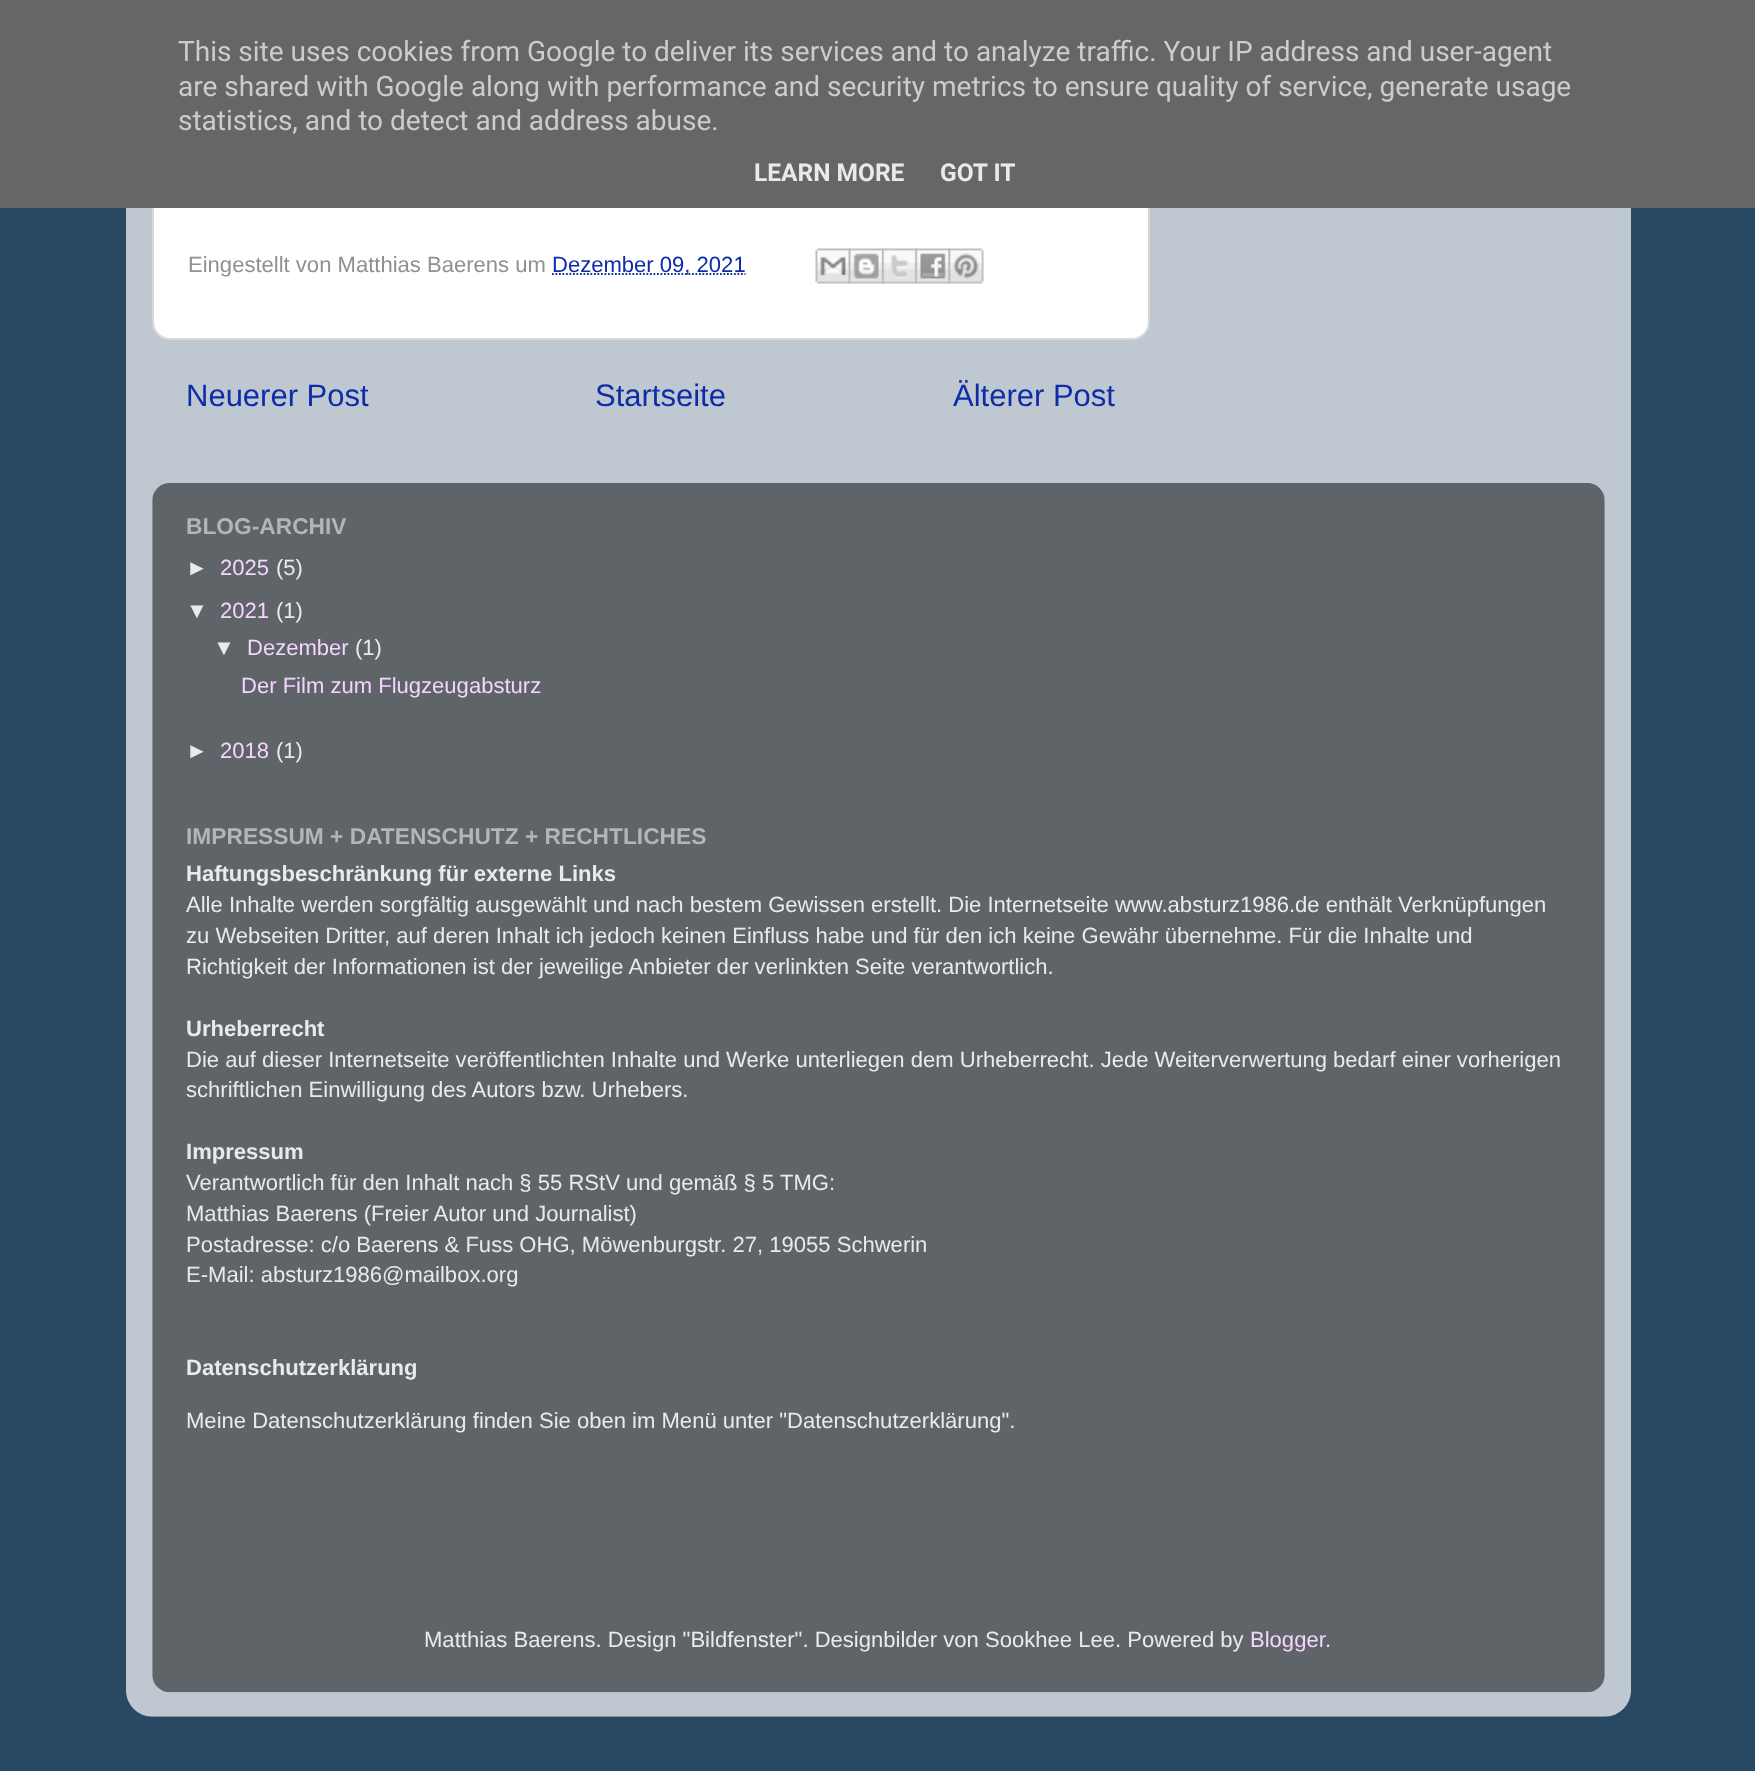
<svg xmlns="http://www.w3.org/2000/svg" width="1755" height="1771">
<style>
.a{font:28px Roboto;fill:#ccc}
.b{font:bold 24.5px Roboto;fill:#eaeaea}
.c{font:22.05px Liberation Sans;fill:#909090}
.d{font:22.05px Liberation Sans;fill:#0e2ca8}
.e{font:31px Liberation Sans;fill:#0e2ca8}
.f{font:bold 22.75px Liberation Sans;fill:#b5b5b5}
.g{font:22.05px Liberation Sans;fill:#eaeaea}
.h{font:22.05px Liberation Sans;fill:#f3d5ff}
.i{font:bold 22.05px Liberation Sans;fill:#eaeaea}
</style>
<rect width="100%" height="100%" fill="#294962"/>
<image href="1.png" x="126" y="208" width="1505" height="1509"/>
<rect fill="#fff" stroke="#d8d8d8" stroke-width="2" x="153" y="-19" width="996" height="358" rx="17"/>
<path fill="#666" d="M0 0h1755v208H0z"/>
<path fill="none" stroke="#0e2ca8" stroke-width="1.8" stroke-dasharray="1.75 1.75" d="M552 274h193.5"/>
<image href="2.png" x="815" y="248" width="36" height="36"/>
<image href="3.png" x="848" y="248" width="36" height="36"/>
<image href="4.png" x="882" y="248" width="35" height="36"/>
<image href="5.png" x="915" y="248" width="36" height="36"/>
<image href="6.png" x="948" y="248" width="36" height="36"/>
<image href="7.png" x="152" y="483" width="1453" height="1210"/>
<text class="a" x="178" y="61">This site uses cookies from Google to deliver its services and to analyze traffic. Your IP address and user-agent</text>
<text class="a" x="178" y="96">are shared with Google along with performance and security metrics to ensure quality of service, generate usage</text>
<text class="a" x="178" y="130">statistics, and to detect and address abuse.</text>
<text class="b" x="754" y="181">LEARN MORE</text>
<text class="b" x="940" y="181">GOT IT</text>
<text class="c" x="188" y="272">Eingestellt von Matthias Baerens um</text>
<text class="d" x="552" y="272">Dezember 09, 2021</text>
<text class="e" x="186" y="406">Neuerer Post</text>
<text class="e" x="595" y="406">Startseite</text>
<text class="e" x="953" y="406">Älterer Post</text>
<text class="f" x="186" y="534">BLOG-ARCHIV</text>
<text class="g" x="186" y="575">►</text>
<text class="h" x="220" y="575">2025</text>
<text class="g" x="276" y="575">(5)</text>
<text class="g" x="186" y="618">▼</text>
<text class="h" x="220" y="618">2021</text>
<text class="g" x="276" y="618">(1)</text>
<text class="g" x="213" y="655">▼</text>
<text class="h" x="247" y="655">Dezember</text>
<text class="g" x="355" y="655">(1)</text>
<text class="h" x="241" y="693">Der Film zum Flugzeugabsturz</text>
<text class="g" x="186" y="758">►</text>
<text class="h" x="220" y="758">2018</text>
<text class="g" x="276" y="758">(1)</text>
<text class="f" x="186" y="844">IMPRESSUM + DATENSCHUTZ + RECHTLICHES</text>
<text class="i" x="186" y="881">Haftungsbeschränkung für externe Links</text>
<text class="g" x="186" y="912">Alle Inhalte werden sorgfältig ausgewählt und nach bestem Gewissen erstellt. Die Internetseite www.absturz1986.de enthält Verknüpfungen</text>
<text class="g" x="186" y="943">zu Webseiten Dritter, auf deren Inhalt ich jedoch keinen Einfluss habe und für den ich keine Gewähr übernehme. Für die Inhalte und</text>
<text class="g" x="186" y="974">Richtigkeit der Informationen ist der jeweilige Anbieter der verlinkten Seite verantwortlich.</text>
<text class="i" x="186" y="1036">Urheberrecht</text>
<text class="g" x="186" y="1067">Die auf dieser Internetseite veröffentlichten Inhalte und Werke unterliegen dem Urheberrecht. Jede Weiterverwertung bedarf einer vorherigen</text>
<text class="g" x="186" y="1097">schriftlichen Einwilligung des Autors bzw. Urhebers.</text>
<text class="i" x="186" y="1159">Impressum</text>
<text class="g" x="186" y="1190">Verantwortlich für den Inhalt nach § 55 RStV und gemäß § 5 TMG:</text>
<text class="g" x="186" y="1221">Matthias Baerens (Freier Autor und Journalist)</text>
<text class="g" x="186" y="1252">Postadresse: c/o Baerens &amp; Fuss OHG, Möwenburgstr. 27, 19055 Schwerin</text>
<text class="g" x="186" y="1282">E-Mail: absturz1986@mailbox.org</text>
<text class="i" x="186" y="1375">Datenschutzerklärung</text>
<text class="g" x="186" y="1428">Meine Datenschutzerklärung finden Sie oben im Menü unter "Datenschutzerklärung".</text>
<text class="g" x="424" y="1647">Matthias Baerens. Design "Bildfenster". Designbilder von Sookhee Lee. Powered by</text>
<text class="h" x="1250" y="1647">Blogger</text>
<text class="g" x="1325" y="1647">.</text>
</svg>
